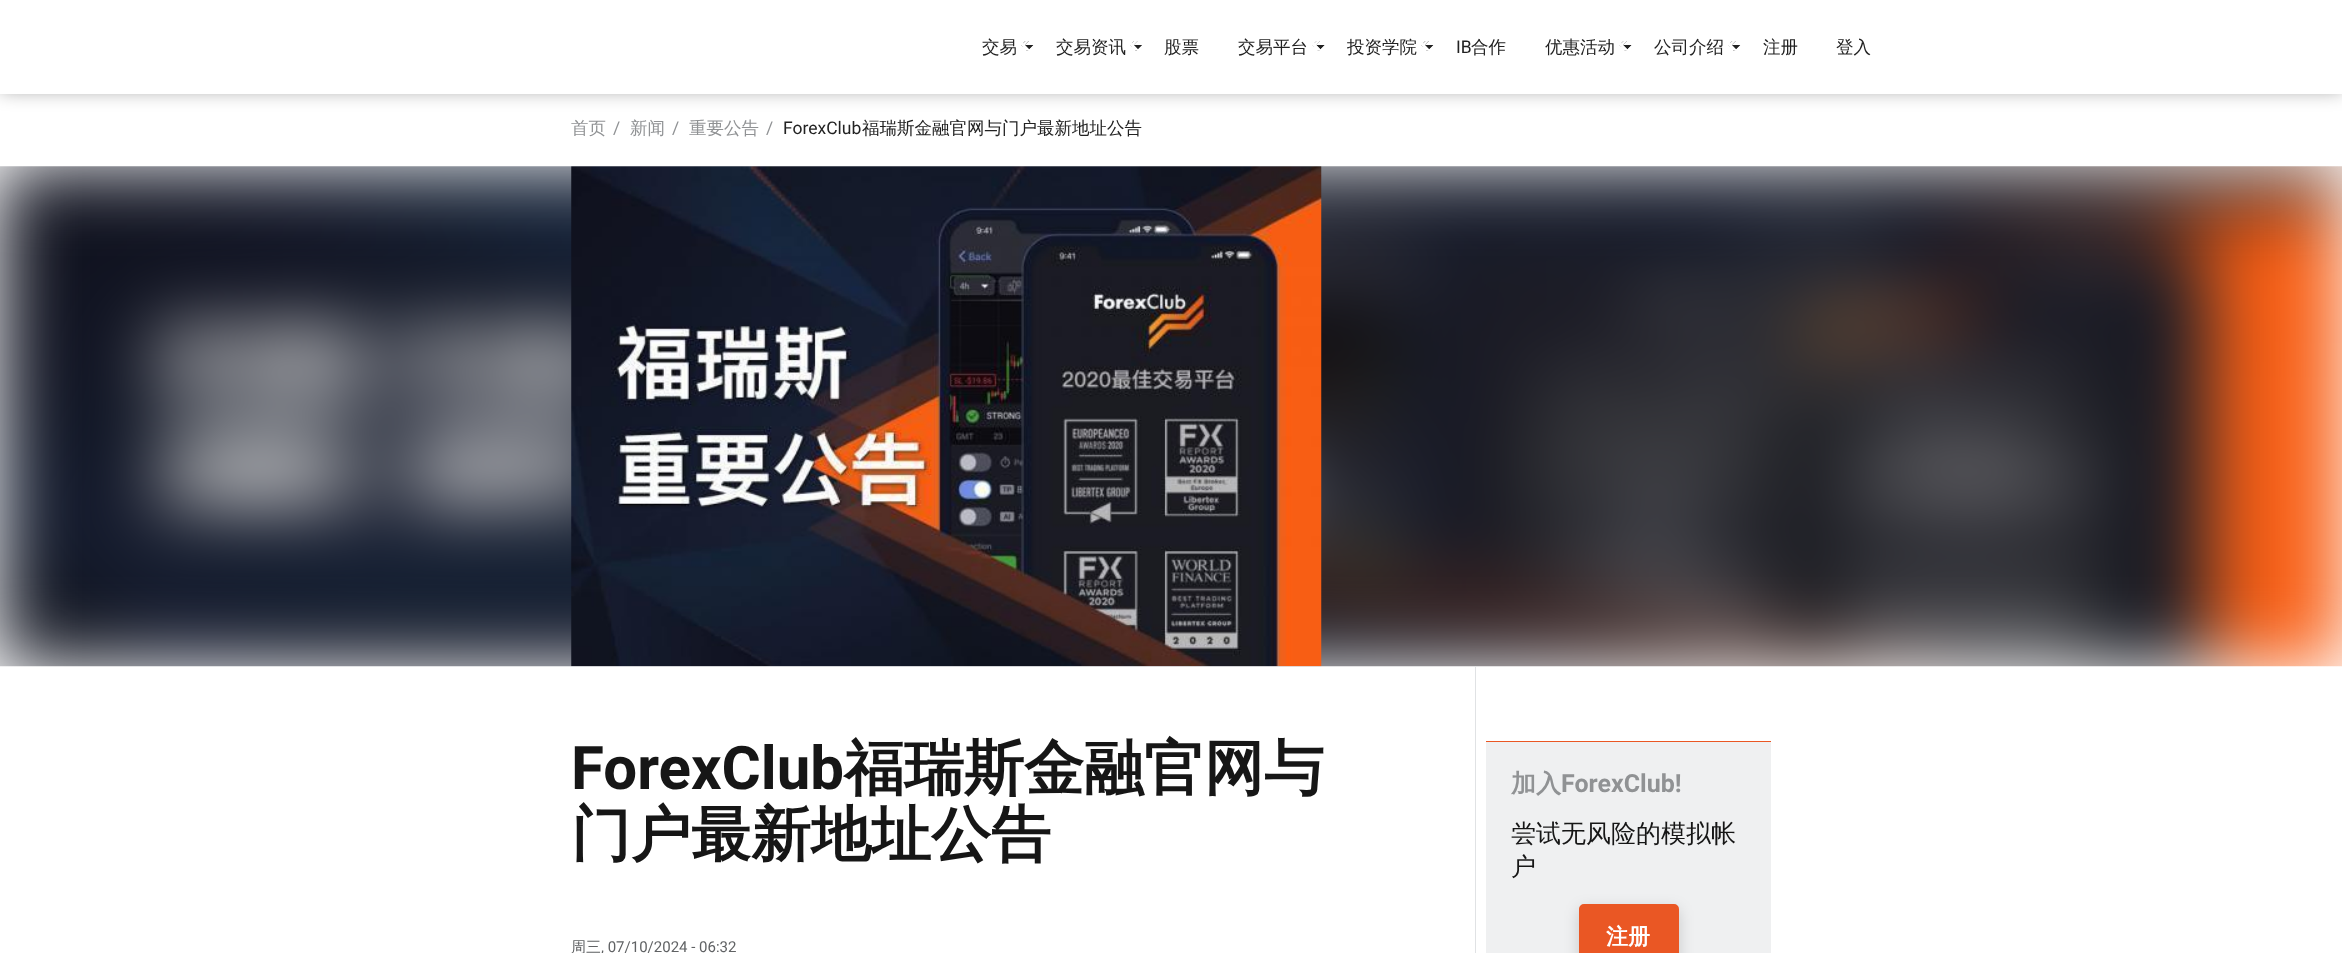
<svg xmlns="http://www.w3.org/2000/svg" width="2342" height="953">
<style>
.a{font:500 17.5px WenQuanYi Zen Hei;fill:#222}
.b{font:17.5px Roboto;fill:#222}
.c{font:500 17.5px WenQuanYi Zen Hei;fill:#909294}
.d{font:17.5px Roboto;fill:#909294}
.e{font:bold 60px Roboto;fill:#161616}
.f{font:bold 60px WenQuanYi Zen Hei;fill:#161616}
.g{font:500 15px WenQuanYi Zen Hei;fill:#606264}
.h{font:15px Roboto;fill:#606264}
.i{font:bold 25px WenQuanYi Zen Hei;fill:#909294}
.j{font:bold 25px Roboto;fill:#909294}
.k{font:500 25px WenQuanYi Zen Hei;fill:#161616}
.l{font:bold 22px WenQuanYi Zen Hei;fill:#fff}
</style>
<rect width="100%" height="100%" fill="#fff"/>
<path fill="#00000066" filter="blur(9.5px)" d="M0 -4h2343v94H0z"/>
<path fill="#fff" d="M0 0h2342v94H0z"/>
<image href="1.png" x="1021" y="41" width="13" height="10"/>
<path fill="#fff" d="M1021.5 45l6-6l1.5 1.5l-6 6.5z"/>
<path fill="#fff" d="M1021.5 45l1.5-2l6 6.5l-1.5 1.5z"/>
<image href="2.png" x="1130" y="41" width="12" height="10"/>
<path fill="#fff" d="M1130 45l6-6l2 1.5l-6 6.5z"/>
<path fill="#fff" d="M1130 45l2-2l6 6.5l-2 1.5z"/>
<image href="3.png" x="1312" y="41" width="13" height="10"/>
<path fill="#fff" d="M1312.5 45l6-6l2 1.5l-6 6.5z"/>
<path fill="#fff" d="M1312.5 45l2-2l6 6.5l-2 1.5z"/>
<image href="1.png" x="1421" y="41" width="13" height="10"/>
<path fill="#fff" d="M1421.5 45l6-6l1.5 1.5l-6 6.5z"/>
<path fill="#fff" d="M1421.5 45l1.5-2l6 6.5l-1.5 1.5z"/>
<image href="4.png" x="1619" y="41" width="13" height="10"/>
<path fill="#fff" d="M1619.5 45l6-6l2 1.5l-6.5 6.5z"/>
<path fill="#fff" d="M1619.5 45l1.5-2l6.5 6.5l-2 1.5z"/>
<image href="5.png" x="1728" y="41" width="13" height="10"/>
<path fill="#fff" d="M1728 45l6.5-6l1.5 1.5l-6 6.5z"/>
<path fill="#fff" d="M1728 45l2-2l6 6.5l-1.5 1.5z"/>
<image href="6.png" x="0" y="166" width="2342" height="501"/>
<image href="7.png" x="571" y="166" width="751" height="501"/>
<path fill="#e0e2e4" d="M1475 666h1v287H1475z"/>
<path fill="#eff0f1" d="M1486 742h285v211H1486z"/>
<path fill="#ea5724" d="M1486 741h285v1H1486z"/>
<rect fill="#00000029" filter="blur(7.5px)" x="1579" y="909" width="100" height="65" rx="5"/>
<rect fill="#ea5724" stroke="#ea5724" stroke-width="3" x="1580.5" y="905.5" width="97" height="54" rx="3.5"/>
<text class="a" x="982" y="53">交易</text>
<text class="a" x="1056" y="53">交易资讯</text>
<text class="a" x="1164" y="53">股票</text>
<text class="a" x="1238" y="53">交易平台</text>
<text class="a" x="1347" y="53">投资学院</text>
<text class="b" x="1456" y="53">IB</text>
<text class="a" x="1471" y="53">合作</text>
<text class="a" x="1545" y="53">优惠活动</text>
<text class="a" x="1654" y="53">公司介绍</text>
<text class="a" x="1763" y="53">注册</text>
<text class="a" x="1836" y="53">登入</text>
<text class="c" x="571" y="134">首页</text>
<text class="d" x="613" y="134">/</text>
<text class="c" x="630" y="134">新闻</text>
<text class="d" x="672" y="134">/</text>
<text class="c" x="689" y="134">重要公告</text>
<text class="d" x="766" y="134">/</text>
<text class="b" x="783" y="134">ForexClub</text>
<text class="a" x="862" y="134">福瑞斯金融官网与门户最新地址公告</text>
<text class="e" x="571" y="789">ForexClub</text>
<text class="f" x="844" y="789">福瑞斯金融官网与</text>
<text class="f" x="571" y="855">门户最新地址公告</text>
<text class="g" x="571" y="952">周三</text>
<text class="h" x="601" y="952">, 07/10/2024 - 06:32</text>
<text class="i" x="1511" y="792">加入</text>
<text class="j" x="1561" y="792">ForexClub!</text>
<text class="k" x="1511" y="842">尝试无风险的模拟帐</text>
<text class="k" x="1511" y="875">户</text>
<text class="l" x="1606" y="944">注册</text>
</svg>
